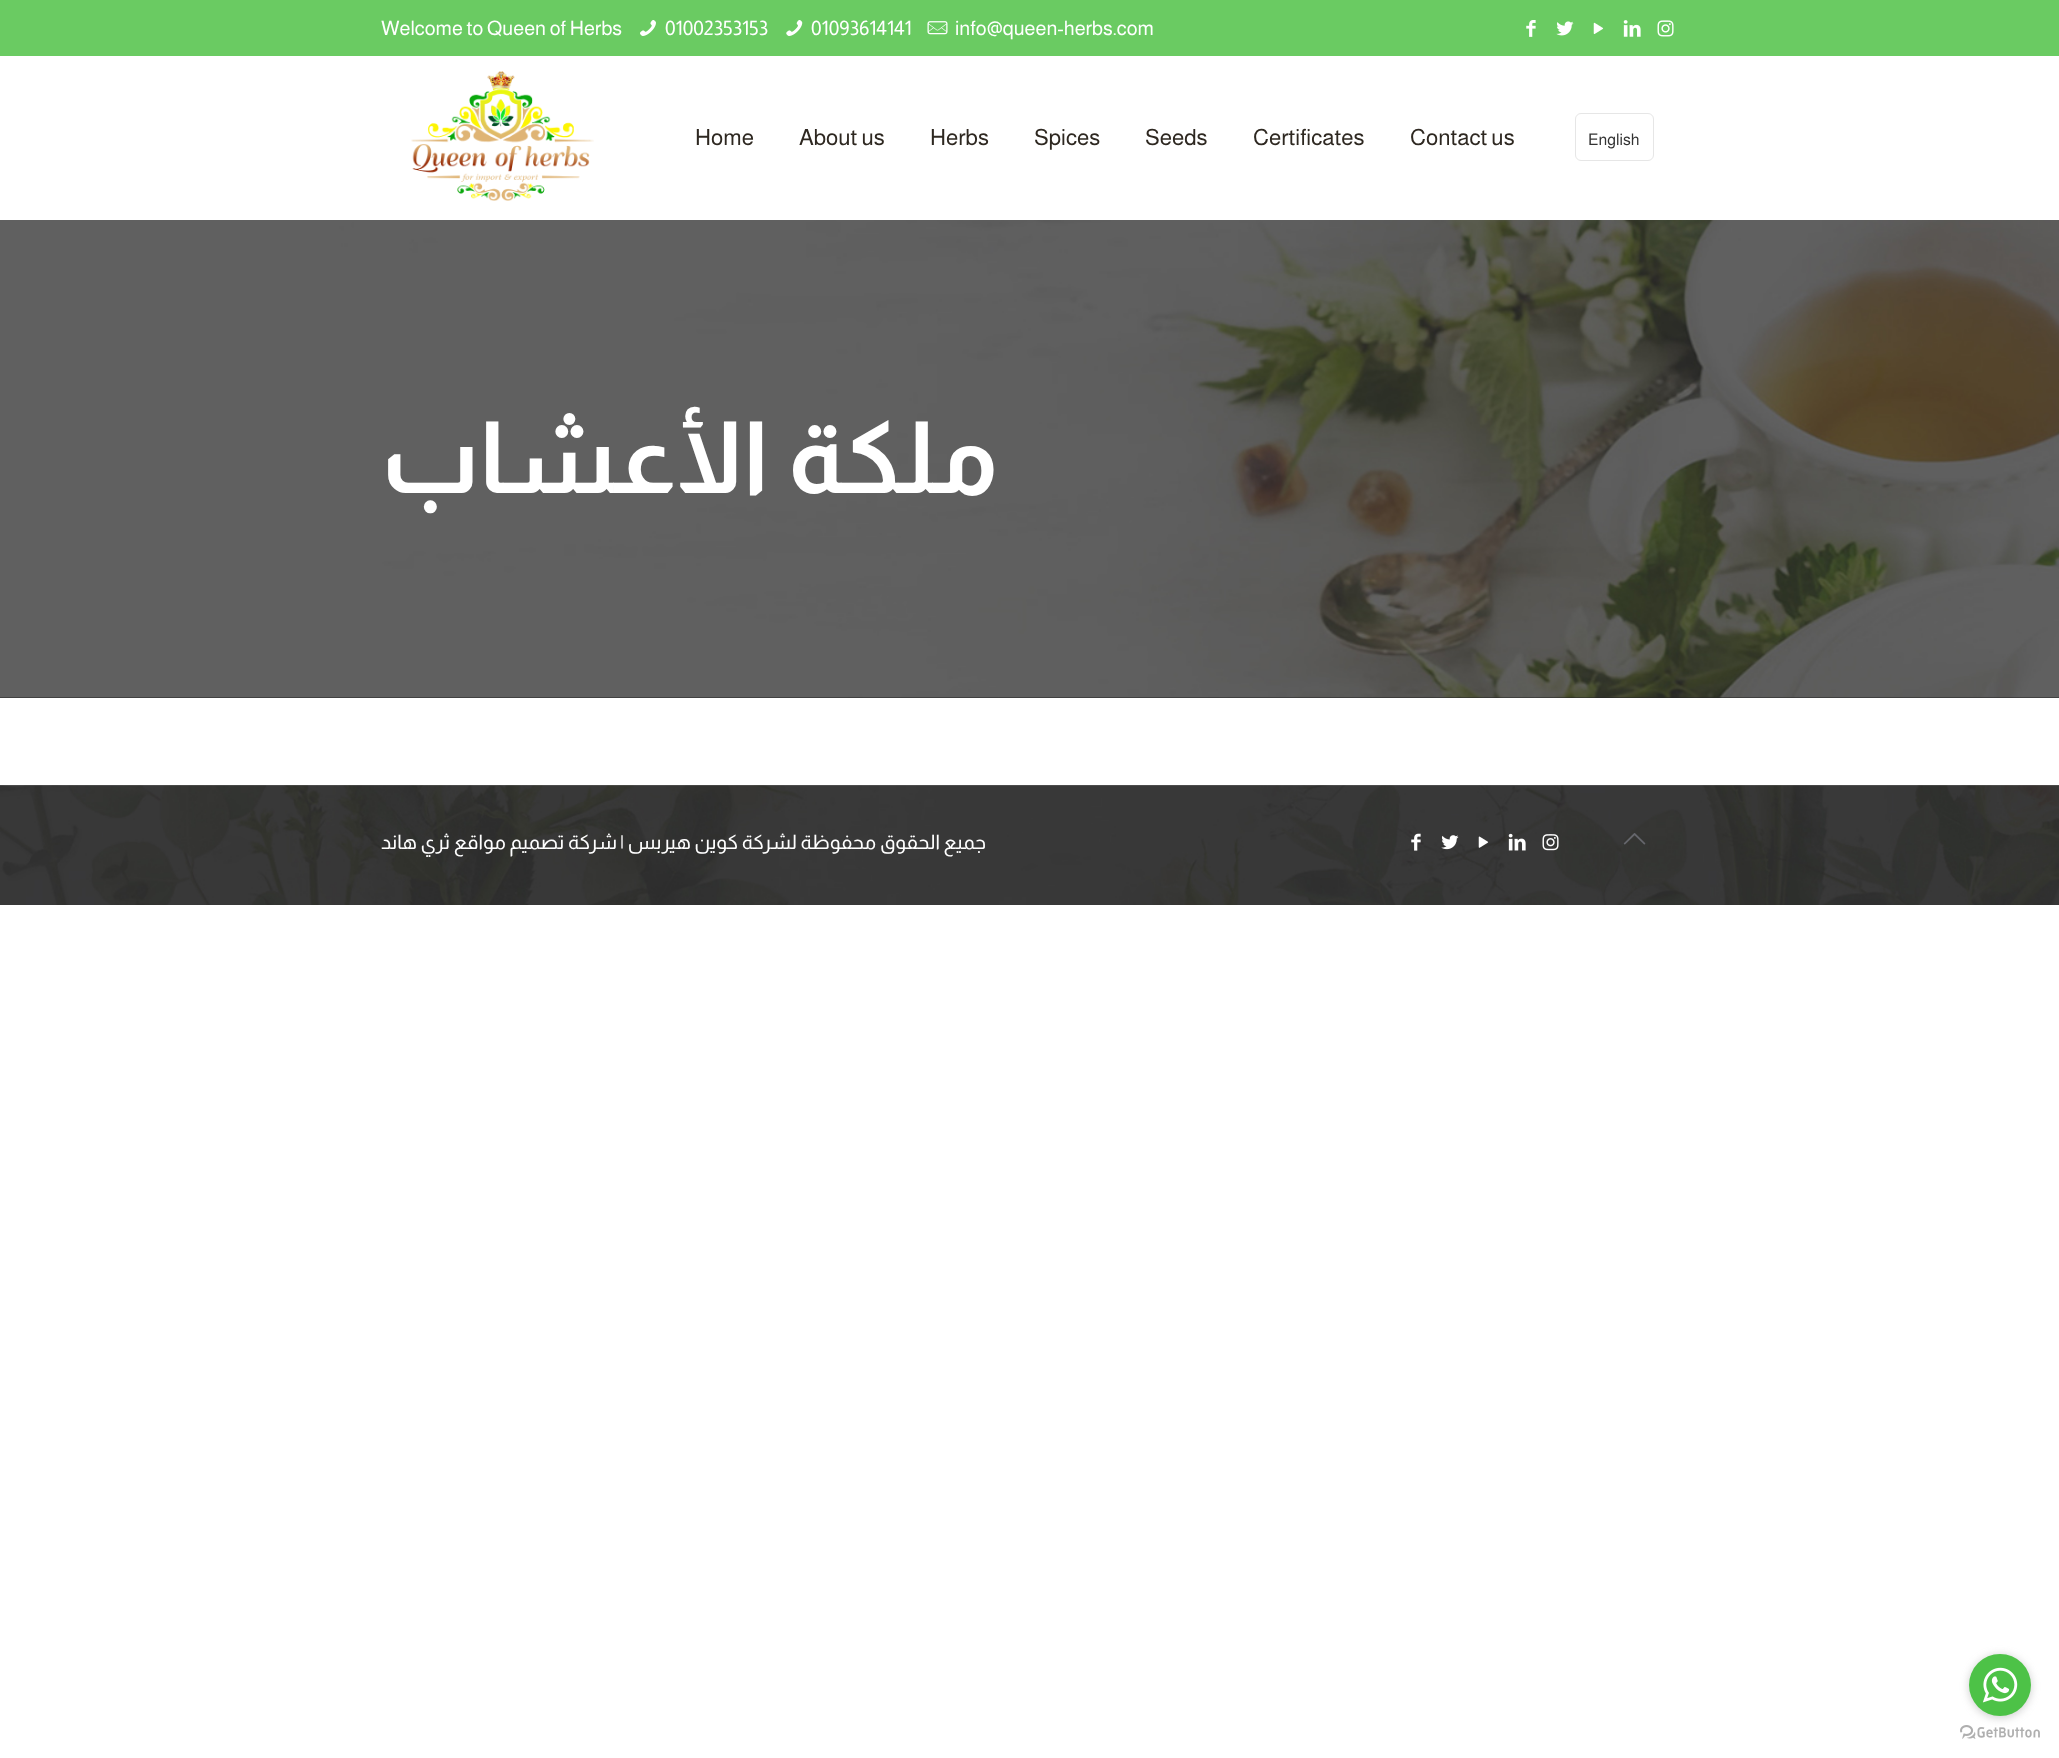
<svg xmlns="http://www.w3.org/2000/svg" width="2059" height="1758">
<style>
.a{font:20px Almarai;fill:#fff}
.b{font:22.5px Almarai;fill:#2e2821}
.c{font:16px Almarai;fill:#333}
.d{font:bold 100px Almarai;direction:rtl;fill:#fff}
.e{font:20px Almarai;direction:rtl;fill:#fff}
</style>
<rect width="100%" height="100%" fill="#fff"/>
<path fill="#232323" d="M0 697h2059v1H0z"/>
<path fill="#6acb62" d="M0 0h2059v56H0z"/>
<image href="1.png" x="640" y="20" width="16" height="16"/>
<image href="2.png" x="786" y="20" width="17" height="16"/>
<image href="3.png" x="927" y="21" width="21" height="14"/>
<image href="4.png" x="1526" y="20" width="10" height="17"/>
<image href="5.png" x="1556" y="21" width="18" height="15"/>
<image href="6.png" x="1593" y="22" width="11" height="12"/>
<image href="7.png" x="1623" y="20" width="18" height="17"/>
<image href="8.png" x="1657" y="20" width="17" height="17"/>
<image href="9.png" x="411" y="71" width="183" height="130"/>
<rect fill="none" stroke="#e6e6e6" x="1575.5" y="113.5" width="78" height="47" rx="5.5"/>
<image href="10.png" x="0" y="220" width="2059" height="478"/>
<image href="11.png" x="0" y="785" width="2059" height="120"/>
<path fill="#ffffff1a" d="M0 785h2059v1H0z"/>
<image href="12.png" x="1411" y="833" width="10" height="18"/>
<image href="13.png" x="1441" y="835" width="18" height="15"/>
<image href="14.png" x="1478" y="836" width="11" height="12"/>
<image href="15.png" x="1508" y="833" width="18" height="18"/>
<image href="16.png" x="1542" y="834" width="17" height="17"/>
<image href="17.png" x="1623" y="833" width="23" height="12"/>
<image href="19.png" x="1960" y="1725" width="80" height="14"/>
<rect fill="#88888866" filter="blur(4.5px)" x="1969" y="1655" width="62" height="63" rx="31"/>
<circle fill="#4dc247" cx="2000" cy="1685" r="31"/>
<image href="18.png" x="1982" y="1667" width="36" height="36"/>
<text class="a" x="381" y="35">Welcome to Queen of Herbs</text>
<text class="a" x="665" y="35">01002353153</text>
<text class="a" x="811" y="35">01093614141</text>
<text class="a" x="955" y="35">info@queen-herbs.com</text>
<text class="b" x="695" y="145">Home</text>
<text class="b" x="799" y="145">About us</text>
<text class="b" x="930" y="145">Herbs</text>
<text class="b" x="1034" y="145">Spices</text>
<text class="b" x="1145" y="145">Seeds</text>
<text class="b" x="1253" y="145">Certificates</text>
<text class="b" x="1410" y="145">Contact us</text>
<text class="c" x="1588" y="145">English</text>
<text class="d" x="998" y="493">ملكة الأعشاب</text>
<text class="e" x="450" y="849">ثري هاند</text>
<text class="e" x="617" y="849">شركة تصميم مواقع</text>
<text class="e" x="986" y="849">جميع الحقوق محفوظة لشركة كوين هيربس |</text>
</svg>
